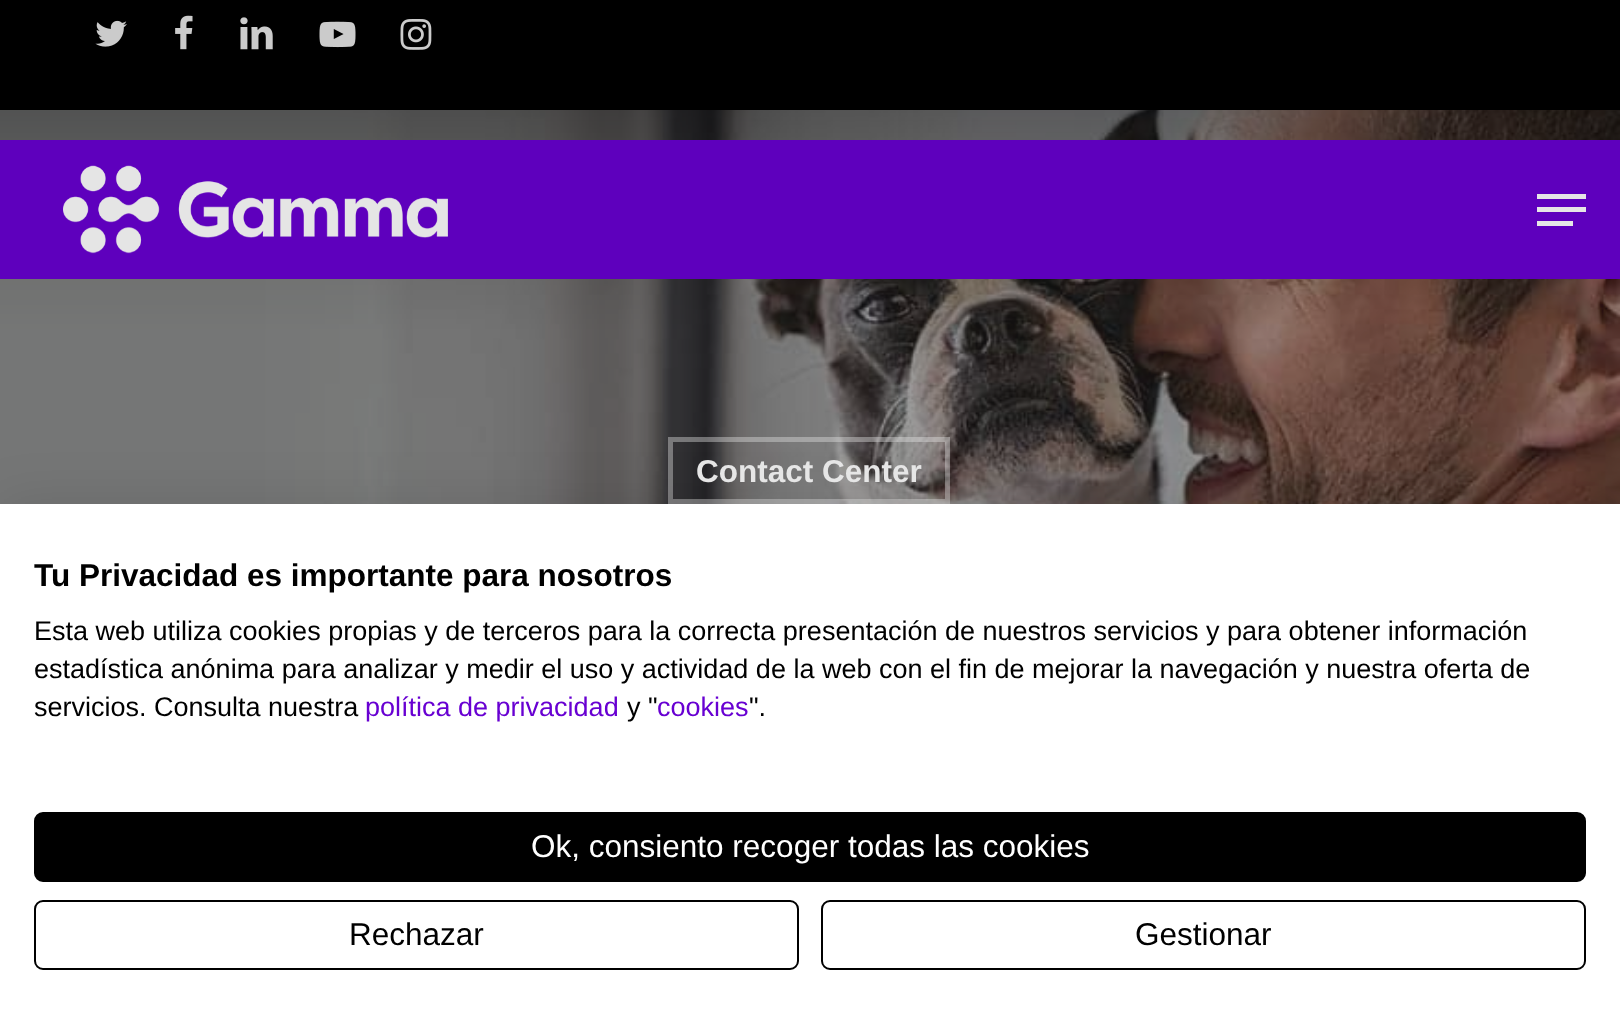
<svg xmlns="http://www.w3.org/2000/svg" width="1620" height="1030">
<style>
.a{font:bold 31.5px Liberation Sans;fill:#e6e6e6}
.b{font:bold 31.5px Liberation Sans;fill:#000}
.c{font:27px Liberation Sans;fill:#000}
.d{font:27px Liberation Sans;fill:#6800d2}
.e{font:31.5px Liberation Sans;fill:#fff}
.f{font:31.5px Liberation Sans;fill:#000}
</style>
<rect width="100%" height="100%" fill="#fff"/>
<path fill="#000" d="M0 0h1620v110H0z"/>
<image href="1.png" x="95" y="20" width="32" height="27"/>
<image href="2.png" x="175" y="15" width="18" height="35"/>
<image href="3.png" x="240" y="17" width="33" height="33"/>
<image href="4.png" x="319" y="21" width="37" height="27"/>
<image href="5.png" x="400" y="19" width="32" height="31"/>
<image href="7.png" x="0" y="110" width="1620" height="394"/>
<path fill="#5e00bd" d="M0 140h1620v139H0z"/>
<image href="6.png" x="63" y="165" width="385" height="89"/>
<path fill="#e6e6e6" d="M1537 194h49v5H1537z"/>
<path fill="#e6e6e6" d="M1537 221h36v5H1537z"/>
<path fill="#e6e6e6" d="M1537 207h49v5H1537z"/>
<path fill="none" stroke="#e6e6e666" stroke-width="5" d="M670.5 439.5h277v62H670.5z"/>
<path fill="#0000001a" filter="blur(27px)" d="M0 504h1620v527H0z"/>
<path fill="#fff" d="M0 504h1620v526H0z"/>
<rect fill="#000" stroke="#000" stroke-width="2" x="35" y="813" width="1550" height="68" rx="8"/>
<rect fill="none" stroke="#000" stroke-width="2" x="35" y="901" width="763" height="68" rx="8"/>
<rect fill="none" stroke="#000" stroke-width="2" x="822" y="901" width="763" height="68" rx="8"/>
<text class="a" x="696" y="482">Contact Center</text>
<text class="b" x="34" y="586">Tu Privacidad es importante para nosotros</text>
<text class="c" x="34" y="640">Esta web utiliza cookies propias y de terceros para la correcta presentación de nuestros servicios y para obtener información</text>
<text class="c" x="34" y="678">estadística anónima para analizar y medir el uso y actividad de la web con el fin de mejorar la navegación y nuestra oferta de</text>
<text class="c" x="34" y="716">servicios. Consulta nuestra</text>
<text class="d" x="365" y="716">política de privacidad</text>
<text class="c" x="627" y="716">y "</text>
<text class="d" x="657" y="716">cookies</text>
<text class="c" x="749" y="716">".</text>
<text class="e" x="531" y="857">Ok, consiento recoger todas las cookies</text>
<text class="f" x="349" y="945">Rechazar</text>
<text class="f" x="1135" y="945">Gestionar</text>
</svg>
